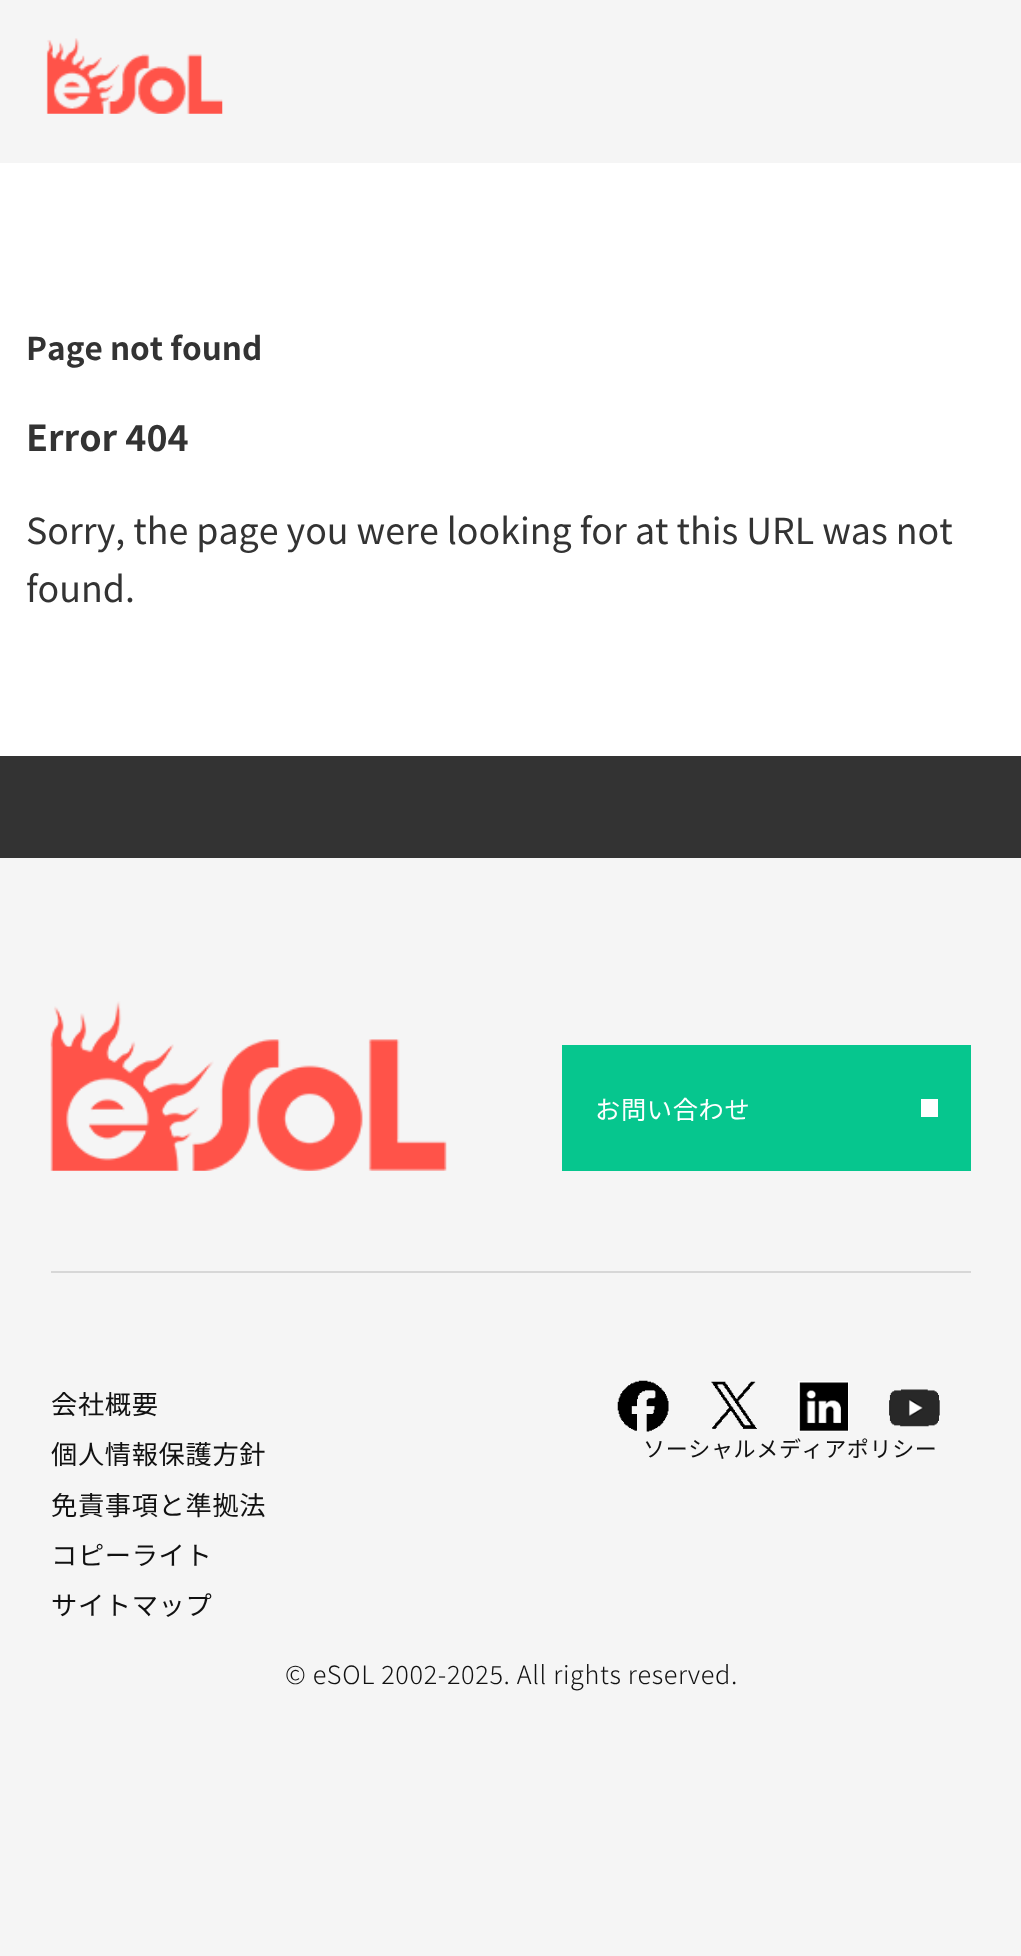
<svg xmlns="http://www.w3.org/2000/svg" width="1021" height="1956">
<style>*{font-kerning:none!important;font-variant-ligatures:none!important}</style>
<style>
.a{font:bold 31.5px Noto Sans JP;fill:#333}
.b{font:bold 35.75px Noto Sans JP;fill:#333}
.c{font:35.75px Noto Sans JP;fill:#333}
.d{font:25.25px Noto Sans JP;letter-spacing:0.65px;fill:#fff}
.e{font:26.25px Noto Sans JP;letter-spacing:0.65px;fill:#111}
.f{font:22px Noto Sans JP;letter-spacing:0.65px;fill:#111}
.g{font:300 25.25px Noto Sans JP;letter-spacing:0.65px;fill:#111}
</style>
<rect width="100%" height="100%" fill="#fff"/>
<path fill="#f5f5f5" d="M0 0h1021v163H0z"/>
<image href="1.png" x="46" y="38" width="177" height="76"/>
<path fill="#333" d="M0 756h1021v102H0z"/>
<path fill="#f5f5f5" d="M0 858h1021v1098H0z"/>
<image href="2.png" x="50" y="1001" width="397" height="170"/>
<path fill="#d7d7d7" d="M51 1271h920v2H51z"/>
<path fill="#06c68e" d="M562 1045h409v126H562z"/>
<path fill="#fff" d="M921 1099h17v18H921z"/>
<image href="3.png" x="617" y="1380" width="52" height="52"/>
<image href="4.png" x="711" y="1381" width="46" height="48"/>
<image href="5.png" x="798" y="1381" width="51" height="51"/>
<image href="6.png" x="889" y="1389" width="51" height="38"/>
<text class="a" x="26" y="360">Page not found</text>
<text class="b" x="26" y="451">Error 404</text>
<text class="c" x="26" y="544">Sorry, the page you were looking for at this URL was not</text>
<text class="c" x="26" y="602">found.</text>
<text class="d" x="595" y="1119">お問い合わせ</text>
<text class="e" x="51" y="1414">会社概要</text>
<text class="e" x="51" y="1464">個人情報保護方針</text>
<text class="e" x="51" y="1515">免責事項と準拠法</text>
<text class="e" x="51" y="1565">コピーライト</text>
<text class="e" x="51" y="1615">サイトマップ</text>
<text class="f" x="643" y="1457">ソーシャルメディアポリシー</text>
<text class="g" x="285" y="1684">© eSOL 2002-2025. All rights reserved.</text>
</svg>
